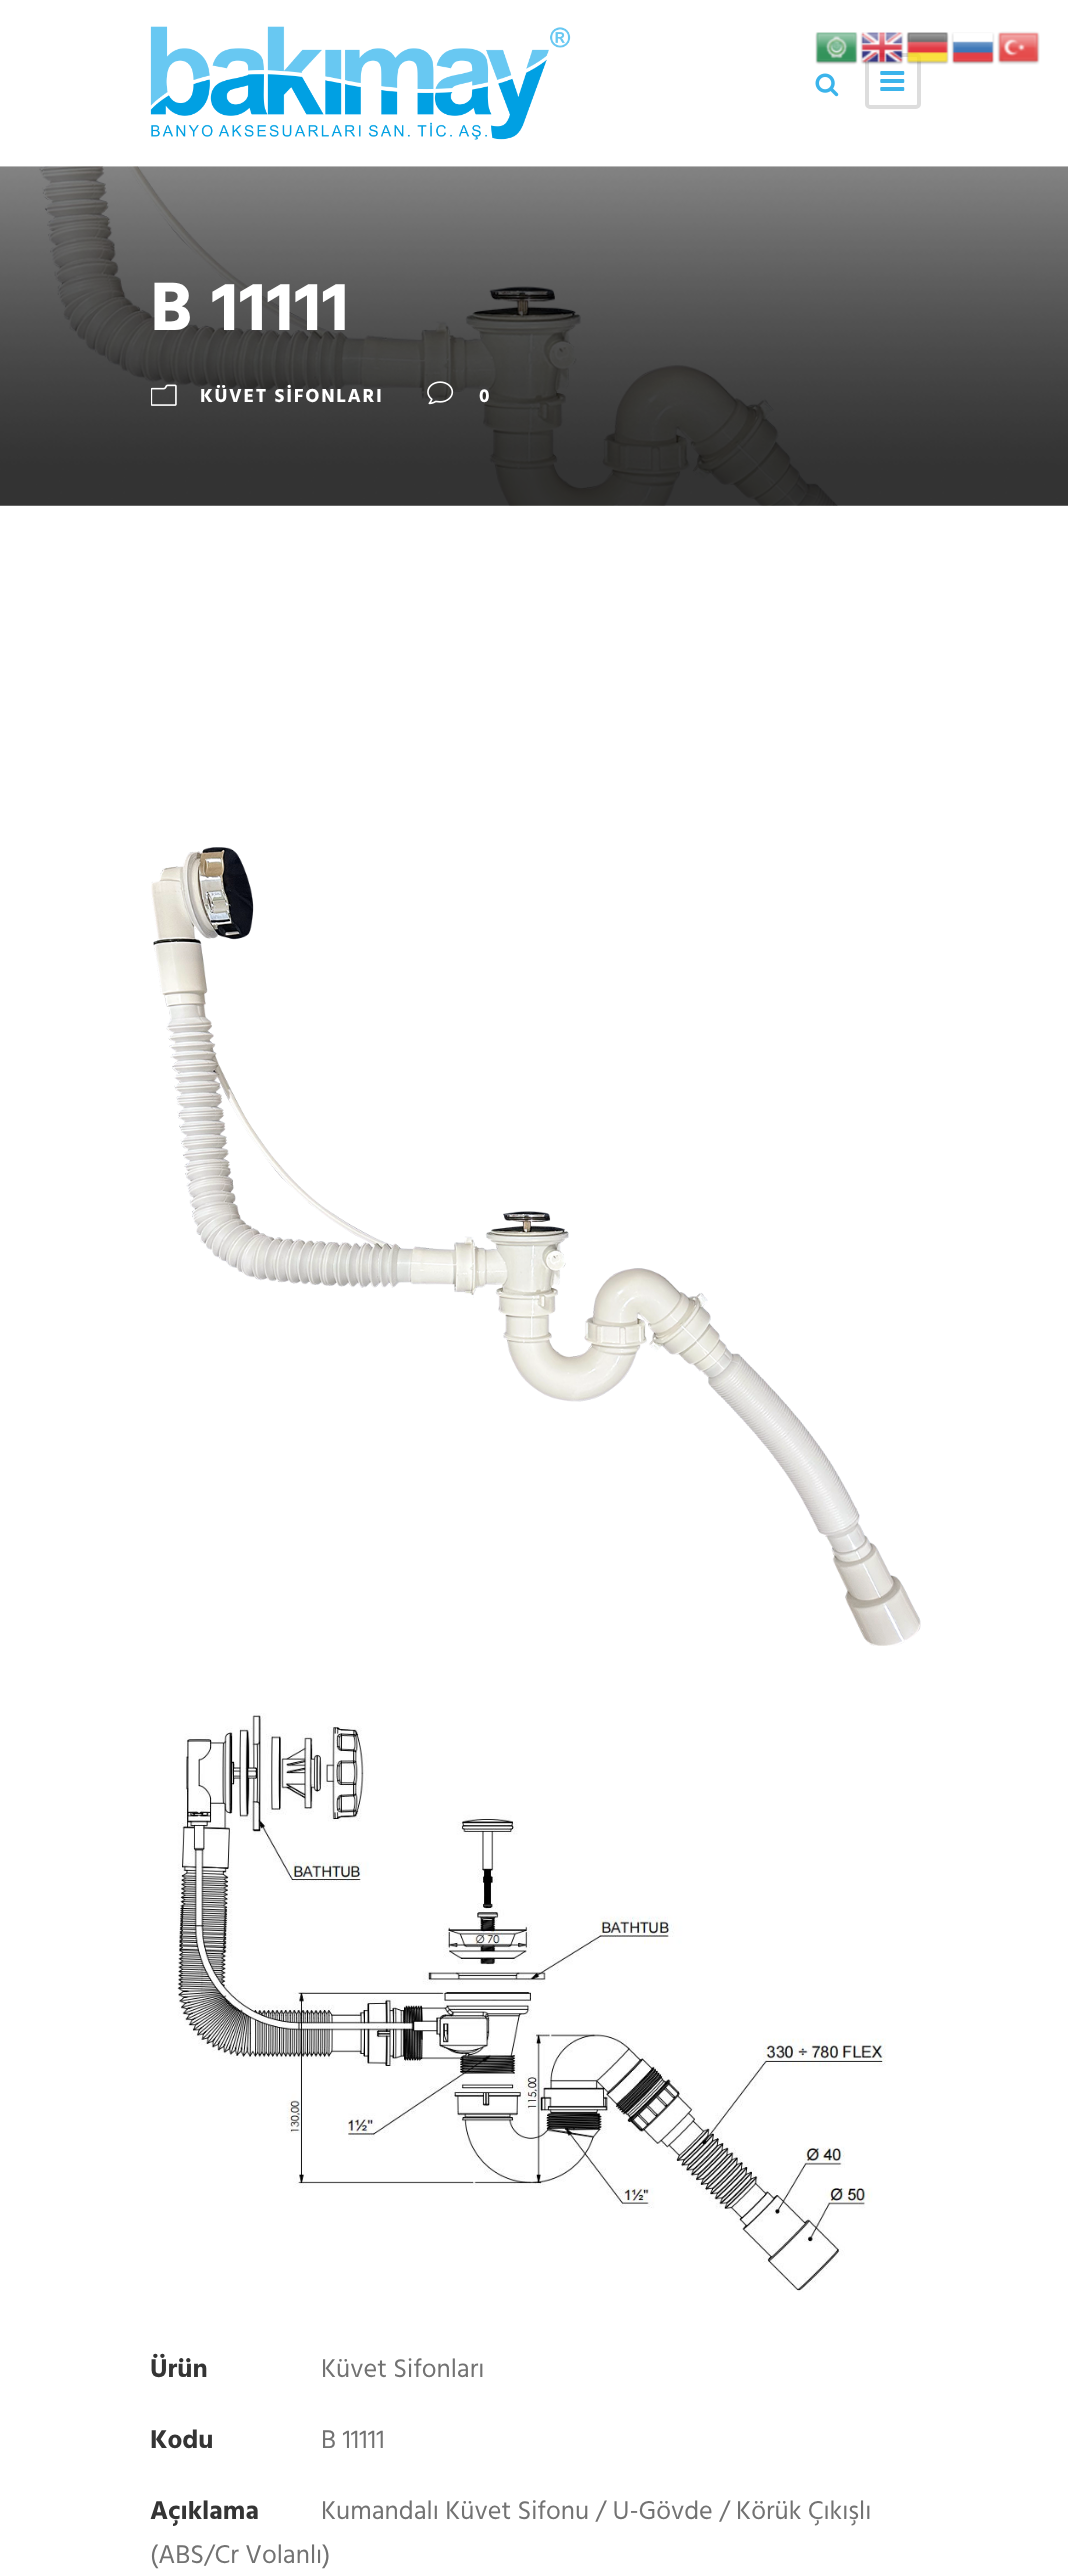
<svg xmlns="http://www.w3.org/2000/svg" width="1068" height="2569">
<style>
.a{font:bold 70px Hind;letter-spacing:1px;fill:#fff}
.b{font:bold 19.25px Hind;letter-spacing:1.75px;fill:#fff}
.c{font:bold 26.25px Hind;fill:#343434}
.d{font:26.25px Hind;fill:#727272}
</style>
<rect width="100%" height="100%" fill="#fff"/>
<image href="1.png" x="150" y="26" width="421" height="114"/>
<image href="2.png" x="815" y="73" width="24" height="24"/>
<rect fill="none" stroke="#ddd" stroke-width="4" x="867" y="55" width="52" height="52" rx="3"/>
<image href="3.png" x="880" y="71" width="25" height="20"/>
<image href="4.png" x="815" y="32" width="43" height="33"/>
<image href="5.png" x="860" y="32" width="44" height="33"/>
<image href="6.png" x="906" y="32" width="43" height="33"/>
<image href="7.png" x="951" y="32" width="44" height="33"/>
<image href="8.png" x="997" y="31" width="43" height="34"/>
<image href="9.png" x="39" y="166" width="799" height="340"/>
<image href="10.png" x="0" y="166" width="1068" height="340"/>
<image href="11.png" x="151" y="384" width="26" height="22"/>
<image href="12.png" x="427" y="381" width="27" height="24"/>
<image href="13.png" x="151" y="847" width="770" height="799"/>
<image href="14.png" x="177" y="1713" width="709" height="579"/>
<text class="a" x="150" y="330">B 11111</text>
<text class="b" x="200" y="402">KÜVET SİFONLARI</text>
<text class="b" x="479" y="402">0</text>
<text class="c" x="150" y="2377">Ürün</text>
<text class="d" x="321" y="2377">Küvet Sifonları</text>
<text class="c" x="150" y="2448">Kodu</text>
<text class="d" x="321" y="2448">B 11111</text>
<text class="c" x="150" y="2519">Açıklama</text>
<text class="d" x="321" y="2519">Kumandalı Küvet Sifonu / U-Gövde / Körük Çıkışlı</text>
<text class="d" x="150" y="2563">(ABS/Cr Volanlı)</text>
</svg>
